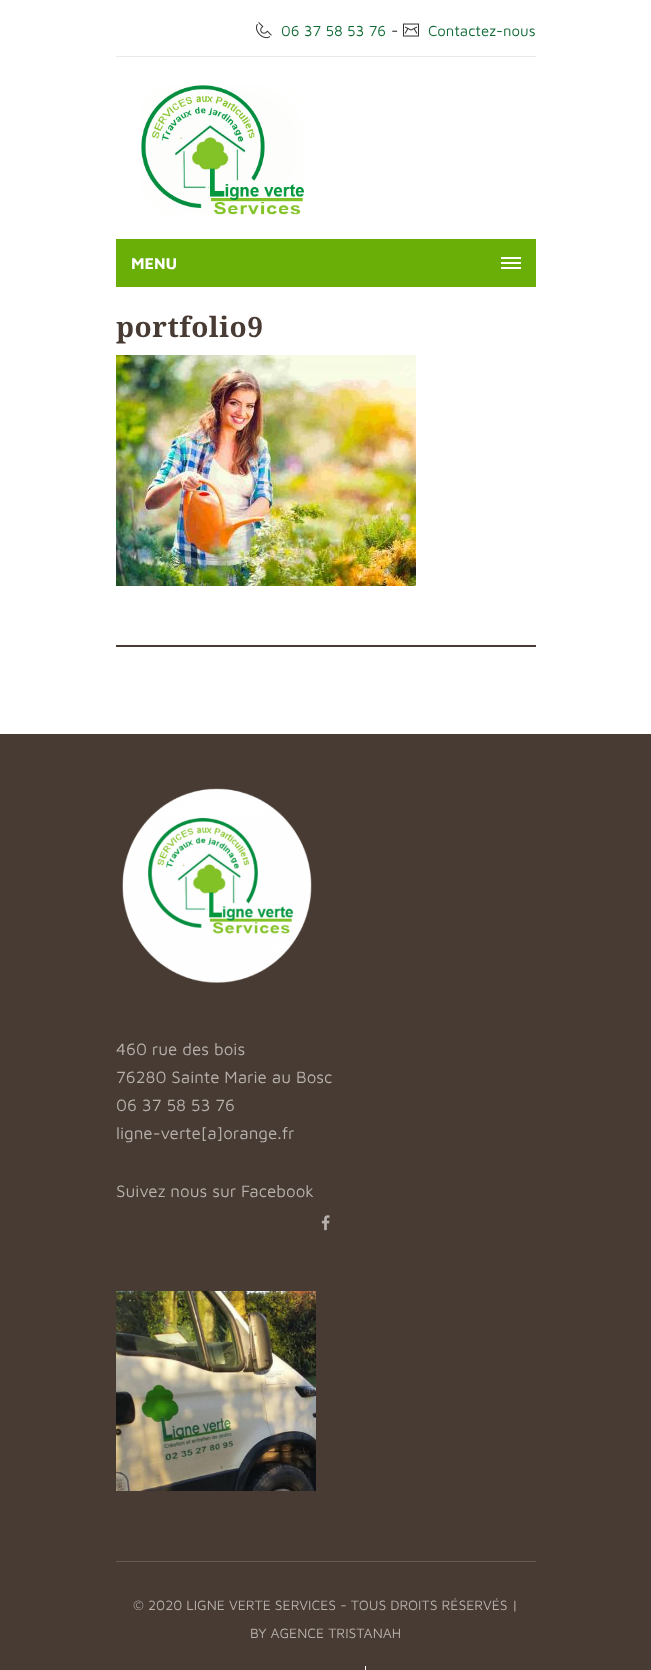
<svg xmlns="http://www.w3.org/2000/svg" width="651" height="1670">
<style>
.a{font:15px Maven Pro;fill:#136c38}
.b{font:16px Maven Pro;fill:#333}
.c{font:bold 16px Maven Pro;fill:#fff}
.d{font:bold 28px Noto Serif;letter-spacing:0.5px;fill:#483b33}
.e{font:17px Maven Pro;fill:#b6b1ad}
.f{font:14px Maven Pro;fill:#b6b1ad}
</style>
<rect width="100%" height="100%" fill="#fff"/>
<path fill="#ebe9e5" d="M116 56h420v1H116z"/>
<image href="1.png" x="256" y="22" width="16" height="17"/>
<image href="2.png" x="403" y="23" width="16" height="14"/>
<image href="3.png" x="141" y="85" width="163" height="130"/>
<path fill="#69af07" d="M116 239h420v48H116z"/>
<path fill="#fff" d="M501 262h20v2H501z"/>
<path fill="#fff" d="M501 257h20v2H501z"/>
<path fill="#fff" d="M501 267h20v2H501z"/>
<image href="4.png" x="116" y="355" width="300" height="231"/>
<path fill="#483b33" d="M116 645h420v2H116z"/>
<path fill="#483b33" d="M0 734h651v936H0z"/>
<image href="5.png" x="122" y="788" width="190" height="195"/>
<image href="6.png" x="321" y="1215" width="9" height="16"/>
<image href="7.png" x="116" y="1291" width="200" height="200"/>
<path fill="#635852" d="M116 1561h420v1H116z"/>
<path fill="#fff" d="M365 1666h1v4H365z"/>
<text class="a" x="281" y="36">06 37 58 53 76</text>
<text class="b" x="391" y="36">-</text>
<text class="a" x="428" y="36">Contactez-nous</text>
<text class="c" x="131" y="269">MENU</text>
<text class="d" x="116" y="337">portfolio9</text>
<text class="e" x="116" y="1055">460 rue des bois</text>
<text class="e" x="116" y="1083">76280 Sainte Marie au Bosc</text>
<text class="e" x="116" y="1111">06 37 58 53 76</text>
<text class="e" x="116" y="1139">ligne-verte[a]orange.fr</text>
<text class="e" x="116" y="1197">Suivez nous sur Facebook</text>
<text class="f" x="133" y="1610">© 2020 LIGNE VERTE SERVICES - TOUS DROITS RÉSERVÉS |</text>
<text class="f" x="250" y="1638">BY AGENCE TRISTANAH</text>
</svg>
